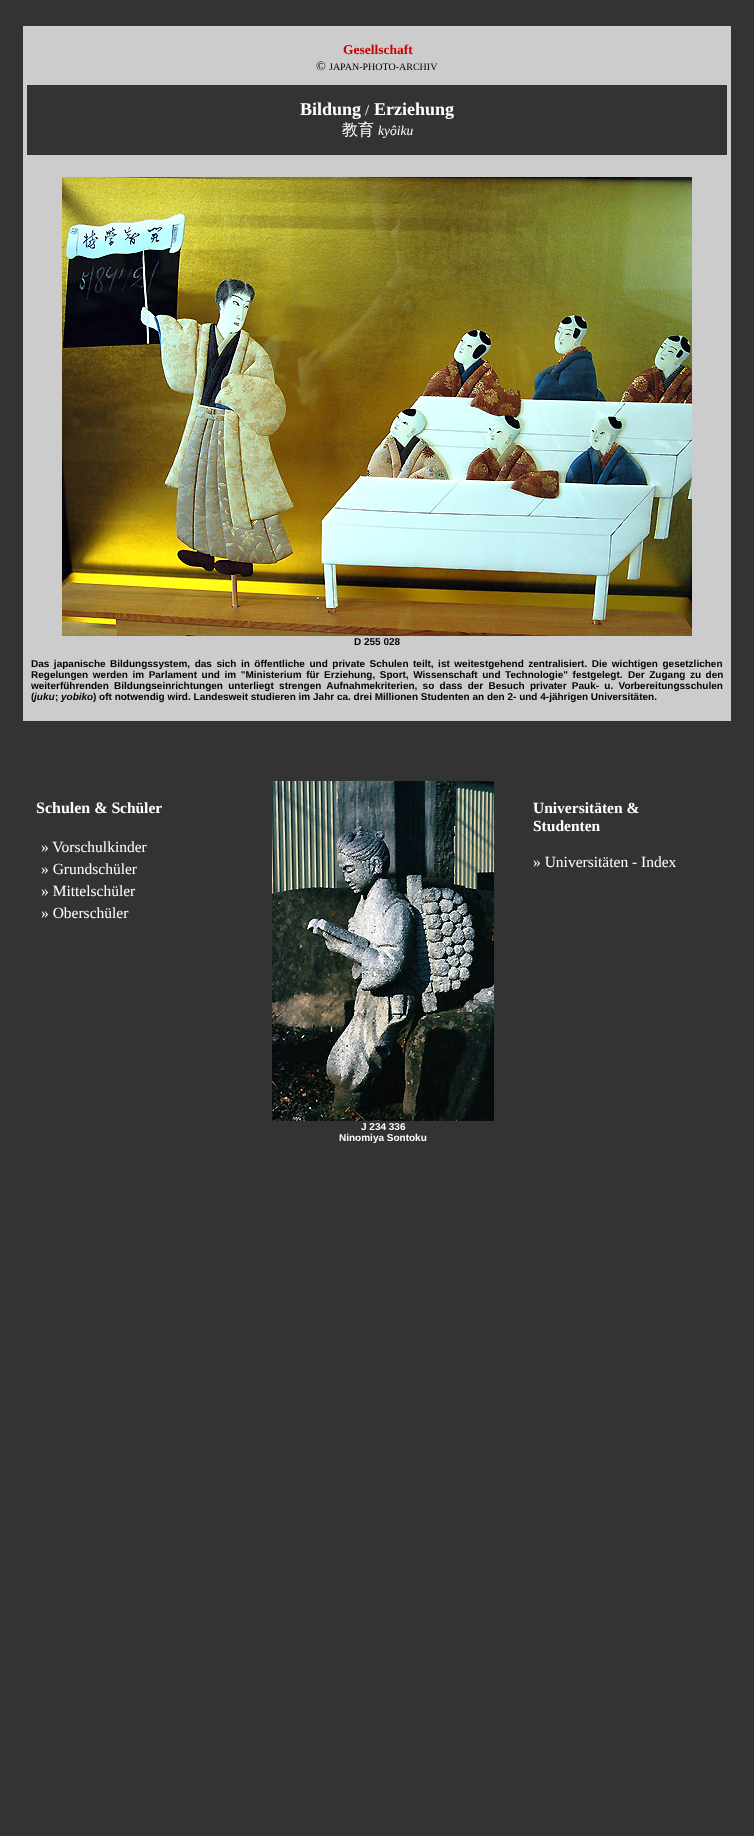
<svg xmlns="http://www.w3.org/2000/svg" width="754" height="1836">
<style>
.a{font:bold 13.5px Liberation Serif;fill:#c00}
.b{font:13px Liberation Serif;fill:#000}
.c{font:10px Liberation Serif;fill:#000}
.d{font:bold 18px Liberation Serif;fill:#fff}
.e{font:15px Liberation Serif;fill:#fff}
.f{font:500 16px WenQuanYi Zen Hei;fill:#fff}
.g{font:italic 13.5px Liberation Serif;fill:#fff}
.h{font:bold 10px Liberation Sans;fill:#000}
.i{font:italic bold 10px Liberation Sans;fill:#000}
.j{font:bold 16px Liberation Serif;fill:#fff}
.k{font:bold 15.5px Liberation Serif;fill:#fff}
.l{font:15.5px Liberation Serif;fill:#fff}
.m{font:bold 10px Liberation Sans;fill:#fff}
</style>
<rect width="100%" height="100%" fill="#333"/>
<path fill="#ccc" d="M23 26h708v695H23z"/>
<path fill="#333" d="M27 85h700v70H27z"/>
<image href="1.png" x="62" y="177" width="630" height="459"/>
<image href="2.png" x="272" y="781" width="222" height="340"/>
<text class="a" x="343" y="54">Gesellschaft</text>
<text class="b" x="316" y="70">©</text>
<text class="c" x="329" y="70">JAPAN-PHOTO-ARCHIV</text>
<text class="d" x="300" y="115">Bildung</text>
<text class="e" x="365" y="115">/</text>
<text class="d" x="374" y="115">Erziehung</text>
<text class="f" x="342" y="135">教育</text>
<text class="g" x="378" y="135">kyôiku</text>
<text class="h" x="354" y="645">D 255 028</text>
<text class="h" x="31" y="667" word-spacing="1.75">Das japanische Bildungssystem, das sich in öffentliche und private Schulen teilt, ist weitestgehend zentralisiert. Die wichtigen gesetzlichen</text>
<text class="h" x="31" y="678" word-spacing="1.8">Regelungen werden im Parlament und im "Ministerium für Erziehung, Sport, Wissenschaft und Technologie" festgelegt.</text>
<text class="h" x="628" y="678" word-spacing="1.8">Der Zugang zu den</text>
<text class="h" x="31" y="689" word-spacing="2.5">weiterführenden Bildungseinrichtungen unterliegt strengen Aufnahmekriterien, so dass der Besuch privater Pauk- u. Vor</text>
<text class="h" x="634" y="689">bereitungsschulen</text>
<text class="h" x="31" y="700">(</text>
<text class="i" x="34" y="700">juku</text>
<text class="h" x="55" y="700">;</text>
<text class="i" x="61" y="700">yobiko</text>
<text class="h" x="93" y="700">) oft notwendig wird. Landesweit studieren im Jahr ca. drei Millionen Studenten an den 2- und 4-jährigen Universitäten.</text>
<text class="j" x="36" y="813">Schulen &amp; S</text>
<text class="k" x="120" y="813">chüler</text>
<text class="l" x="41" y="852">» Vorschulkinder</text>
<text class="l" x="41" y="874">» Grundschüler</text>
<text class="l" x="41" y="896">» Mittelschüler</text>
<text class="l" x="41" y="918">» Oberschüler</text>
<text class="k" x="533" y="813">Universitäten &amp;</text>
<text class="k" x="533" y="831">Studenten</text>
<text class="l" x="533" y="867">» Universitäten - Index</text>
<text class="m" x="361" y="1130">J 234 336</text>
<text class="m" x="339" y="1141">Ninomiya Sontoku</text>
</svg>
